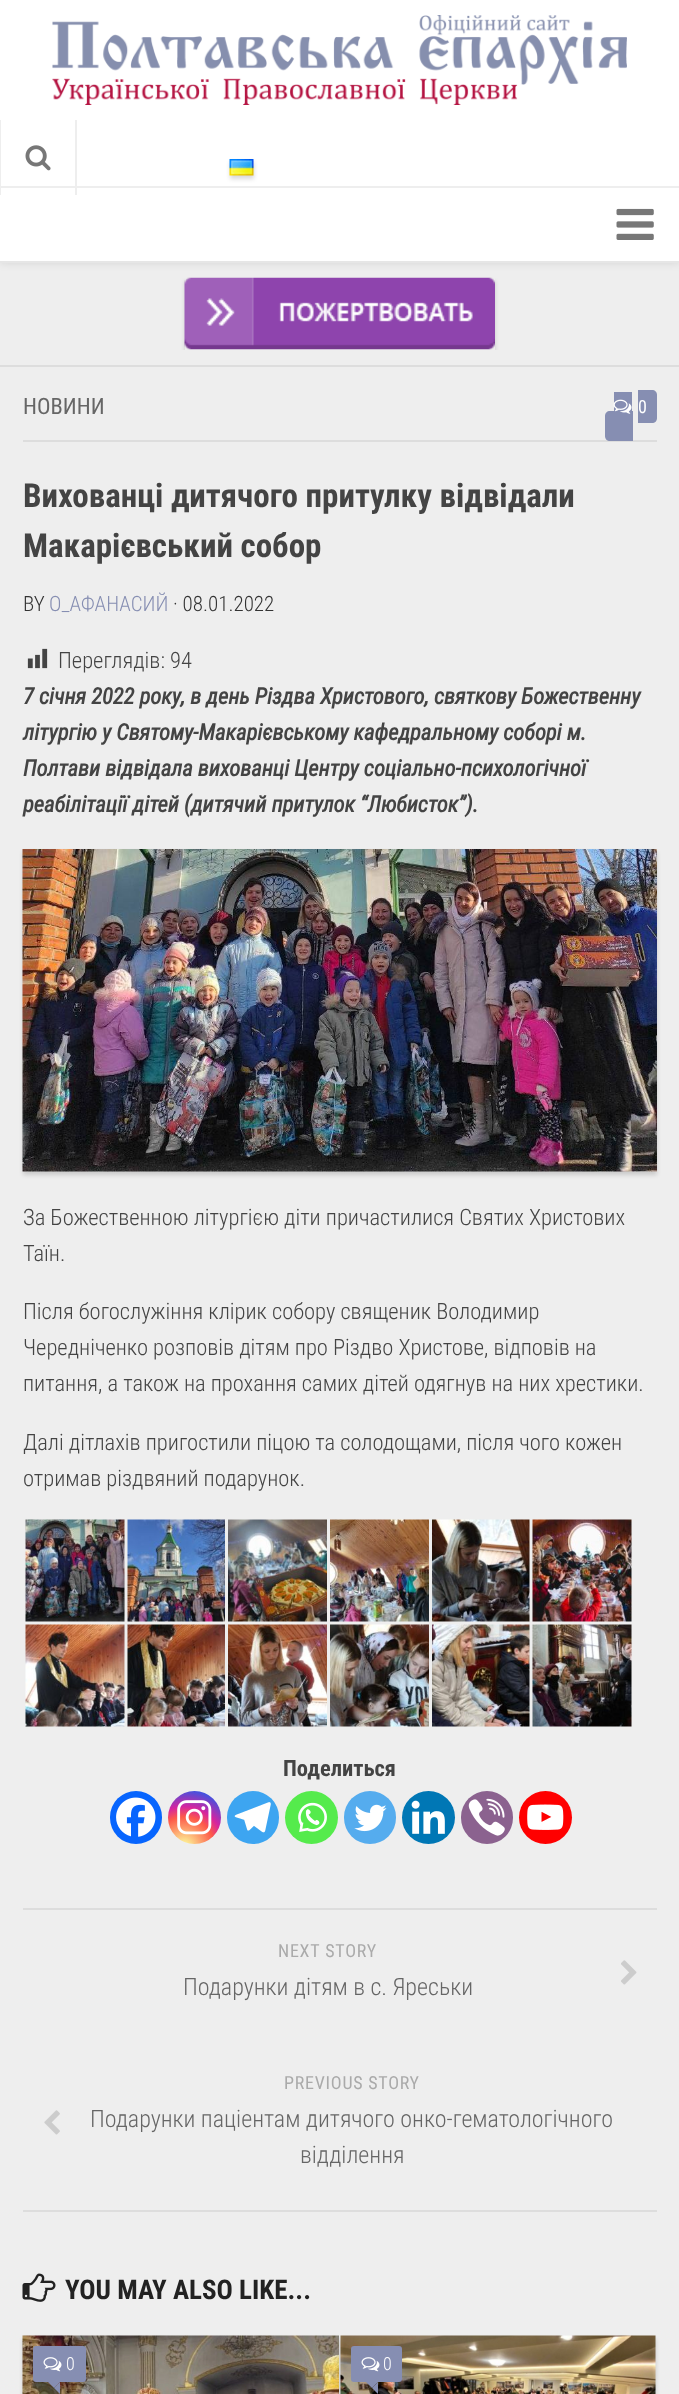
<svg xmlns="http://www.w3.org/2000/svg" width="679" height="2394">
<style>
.a{font:22.5px Roboto Condensed;fill:#666}
.b{font:18px Roboto Condensed;fill:#fff}
.c{font:bold 33px Roboto Condensed;fill:#444}
.d{font:300 21px Roboto Condensed;fill:#333}
.e{font:300 21px Roboto Condensed;fill:#868eb2}
.f{font:300 22.5px Roboto Condensed;fill:#444}
.g{font:italic bold 22.5px Roboto Condensed;fill:#444}
.h{font:bold 22.5px Roboto Condensed;fill:#444}
.i{font:18px Roboto Condensed;letter-spacing:0.75px;fill:#aaa}
.j{font:300 24px Roboto Condensed;fill:#666}
.k{font:bold 27px Roboto Condensed;fill:#222}
.l{font:300 18px Roboto Condensed;fill:#fff}
</style>
<defs>
<clipPath id="clip1"><path d="M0 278h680v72H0z"/></clipPath>
<clipPath id="clip2"><path d="M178 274h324v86h-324zm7 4h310v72h-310z" clip-rule="evenodd"/></clipPath>
<radialGradient id="g1" gradientUnits="userSpaceOnUse" cx="184" cy="1847" r="67"><stop offset="0" stop-color="#fdf497"/><stop offset="0.05" stop-color="#fdf497"/><stop offset="0.45" stop-color="#fd5949"/><stop offset="0.6" stop-color="#d6249f"/><stop offset="0.9" stop-color="#285aeb"/></radialGradient>
</defs>
<rect width="100%" height="100%" fill="#eee"/>
<path fill="#0000001a" filter="blur(4px)" d="M0 0h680v263H0z"/>
<path fill="#fff" d="M0 0h679v261H0z"/>
<path fill="#e6e6e6" d="M0 261h679v2H0z"/>
<image href="1.png" x="52" y="15" width="575" height="90"/>
<path fill="#00000026" filter="blur(2px)" d="M230 162h24v17H230z"/>
<image href="2.png" x="229" y="159" width="25" height="17"/>
<path fill="#eee" d="M0 186h679v2H0z"/>
<image href="3.png" x="616" y="208" width="38" height="32"/>
<path fill="#eee" d="M75 120h2v75H75z"/>
<path fill="#eee" d="M0 120h1v75H0z"/>
<image href="4.png" x="25" y="145" width="26" height="26"/>
<path fill="#ddd" d="M0 365h679v2H0z"/>
<g clip-path="url(#clip1)">
<g clip-path="url(#clip2)">
<path fill="#00000026" filter="blur(2px)" d="M185 281h310v72H185z"/>
</g>
</g>
<image href="5.png" x="184" y="277" width="311" height="73"/>
<path fill="#ddd" d="M23 440h634v2H23z"/>
<path fill="#868eb2" d="M610 411h23v30h-23c-3 0-5-2-5-5v-20c0-3 2-5 5-5z"/>
<path fill="#868eb2" d="M614 392h18v19H614z"/>
<path fill="#868eb2" d="M638 390h14c3 0 5 2 5 5v23c0 3-2 5-5 5h-14z"/>
<image href="6.png" x="613" y="399" width="19" height="15"/>
<image href="7.png" x="27" y="648" width="21" height="21"/>
<path fill="#00000026" filter="blur(2px)" d="M23 852h634v323H23z"/>
<image href="8.png" x="22" y="849" width="635" height="323"/>
<image href="9.png" x="25" y="1519" width="100" height="103"/>
<image href="10.png" x="127" y="1519" width="98" height="103"/>
<image href="11.png" x="228" y="1519" width="99" height="103"/>
<image href="12.png" x="330" y="1519" width="99" height="103"/>
<image href="13.png" x="432" y="1519" width="98" height="103"/>
<image href="14.png" x="532" y="1519" width="100" height="103"/>
<image href="15.png" x="25" y="1624" width="100" height="103"/>
<image href="16.png" x="127" y="1624" width="98" height="103"/>
<image href="17.png" x="228" y="1624" width="99" height="103"/>
<image href="18.png" x="330" y="1624" width="99" height="103"/>
<image href="19.png" x="432" y="1624" width="98" height="103"/>
<image href="20.png" x="532" y="1624" width="100" height="103"/>
<rect fill="#0765fe" x="110" y="1791" width="52" height="53" rx="26"/>
<image href="21.png" x="116" y="1797" width="40" height="40"/>
<circle fill="url(#g1)" cx="194.5" cy="1817.5" r="26.5"/>
<image href="22.png" x="177" y="1800" width="35" height="35"/>
<rect fill="#3da5f1" x="227" y="1791" width="52" height="53" rx="26"/>
<image href="23.png" x="234" y="1802" width="37" height="31"/>
<circle fill="#55eb4c" cx="311.5" cy="1817.5" r="26.5"/>
<image href="24.png" x="298" y="1802" width="29" height="30"/>
<rect fill="#55acee" x="344" y="1791" width="52" height="53" rx="26"/>
<image href="25.png" x="354" y="1804" width="33" height="28"/>
<circle fill="#0077b5" cx="428.5" cy="1817.5" r="26.5"/>
<image href="26.png" x="411" y="1800" width="34" height="34"/>
<rect fill="#8b628f" x="461" y="1791" width="52" height="53" rx="26"/>
<image href="27.png" x="468" y="1798" width="37" height="38"/>
<circle fill="#f00" cx="545.5" cy="1817.5" r="26.5"/>
<image href="28.png" x="527" y="1804" width="37" height="26"/>
<path fill="#ddd" d="M23 1908h634v2H23z"/>
<path fill="#ddd" d="M23 2210h634v2H23z"/>
<image href="29.png" x="621" y="1960" width="16" height="25"/>
<image href="30.png" x="44" y="2110" width="16" height="25"/>
<image href="31.png" x="22" y="2273" width="34" height="29"/>
<path fill="#00000026" filter="blur(2px)" d="M23 2339h316v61H23z"/>
<image href="32.png" x="22" y="2335" width="317" height="59"/>
<rect fill="#868eb2" x="33" y="2346" width="53" height="36" rx="3"/>
<image href="33.png" x="43" y="2357" width="19" height="15"/>
<path fill="#868eb2" d="M48 2382h12l-6 6z"/>
<path fill="#868eb2" d="M60 2382v12l-6-6z"/>
<path fill="#00000026" filter="blur(2px)" d="M341 2339h315v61H341z"/>
<image href="34.png" x="340" y="2335" width="316" height="59"/>
<rect fill="#868eb2" x="351" y="2346" width="51" height="36" rx="3"/>
<image href="33.png" x="361" y="2357" width="19" height="15"/>
<path fill="#868eb2" d="M366 2382h12l-6 6z"/>
<path fill="#868eb2" d="M378 2382v12l-6-6z"/>
<text class="a" x="23" y="414">НОВИНИ</text>
<text class="b" x="638" y="413">0</text>
<text class="c" x="23" y="507">Вихованці дитячого притулку відвідали</text>
<text class="c" x="23" y="557">Макарієвський собор</text>
<text class="d" x="23" y="611">BY</text>
<text class="e" x="49" y="611">О_АФАНАСИЙ</text>
<text class="d" x="173" y="611">· 08.01.2022</text>
<text class="f" x="58" y="668">Переглядів: 94</text>
<text class="g" x="23" y="704">7 січня 2022 року, в день Різдва Христового, святкову Божественну</text>
<text class="g" x="23" y="740">літургію у Святому-Макарієвському кафедральному соборі м.</text>
<text class="g" x="23" y="776">Полтави відвідала вихованці Центру соціально-психологічної</text>
<text class="g" x="23" y="812">реабілітації дітей (дитячий притулок “Любисток”).</text>
<text class="f" x="23" y="1225">За Божественною літургією діти причастилися Святих Христових</text>
<text class="f" x="23" y="1261">Таїн.</text>
<text class="f" x="23" y="1319">Після богослужіння клірик собору священик Володимир</text>
<text class="f" x="23" y="1355">Чередніченко розповів дітям про Різдво Христове, відповів на</text>
<text class="f" x="23" y="1391">питання, а також на прохання самих дітей одягнув на них хрестики.</text>
<text class="f" x="23" y="1450">Далі дітлахів пригостили піцою та солодощами, після чого кожен</text>
<text class="f" x="23" y="1486">отримав різдвяний подарунок.</text>
<text class="h" x="283" y="1776">Поделиться</text>
<text class="i" x="278" y="1957">NEXT STORY</text>
<text class="j" x="183" y="1995">Подарунки дітям в с. Яреськи</text>
<text class="i" x="284" y="2089">PREVIOUS STORY</text>
<text class="j" x="90" y="2127">Подарунки паціентам дитячого онко-гематологічного</text>
<text class="j" x="300" y="2163">відділення</text>
<text class="k" x="65" y="2299">YOU MAY ALSO LIKE...</text>
<text class="l" x="66" y="2370">0</text>
<text class="l" x="383" y="2370">0</text>
</svg>
